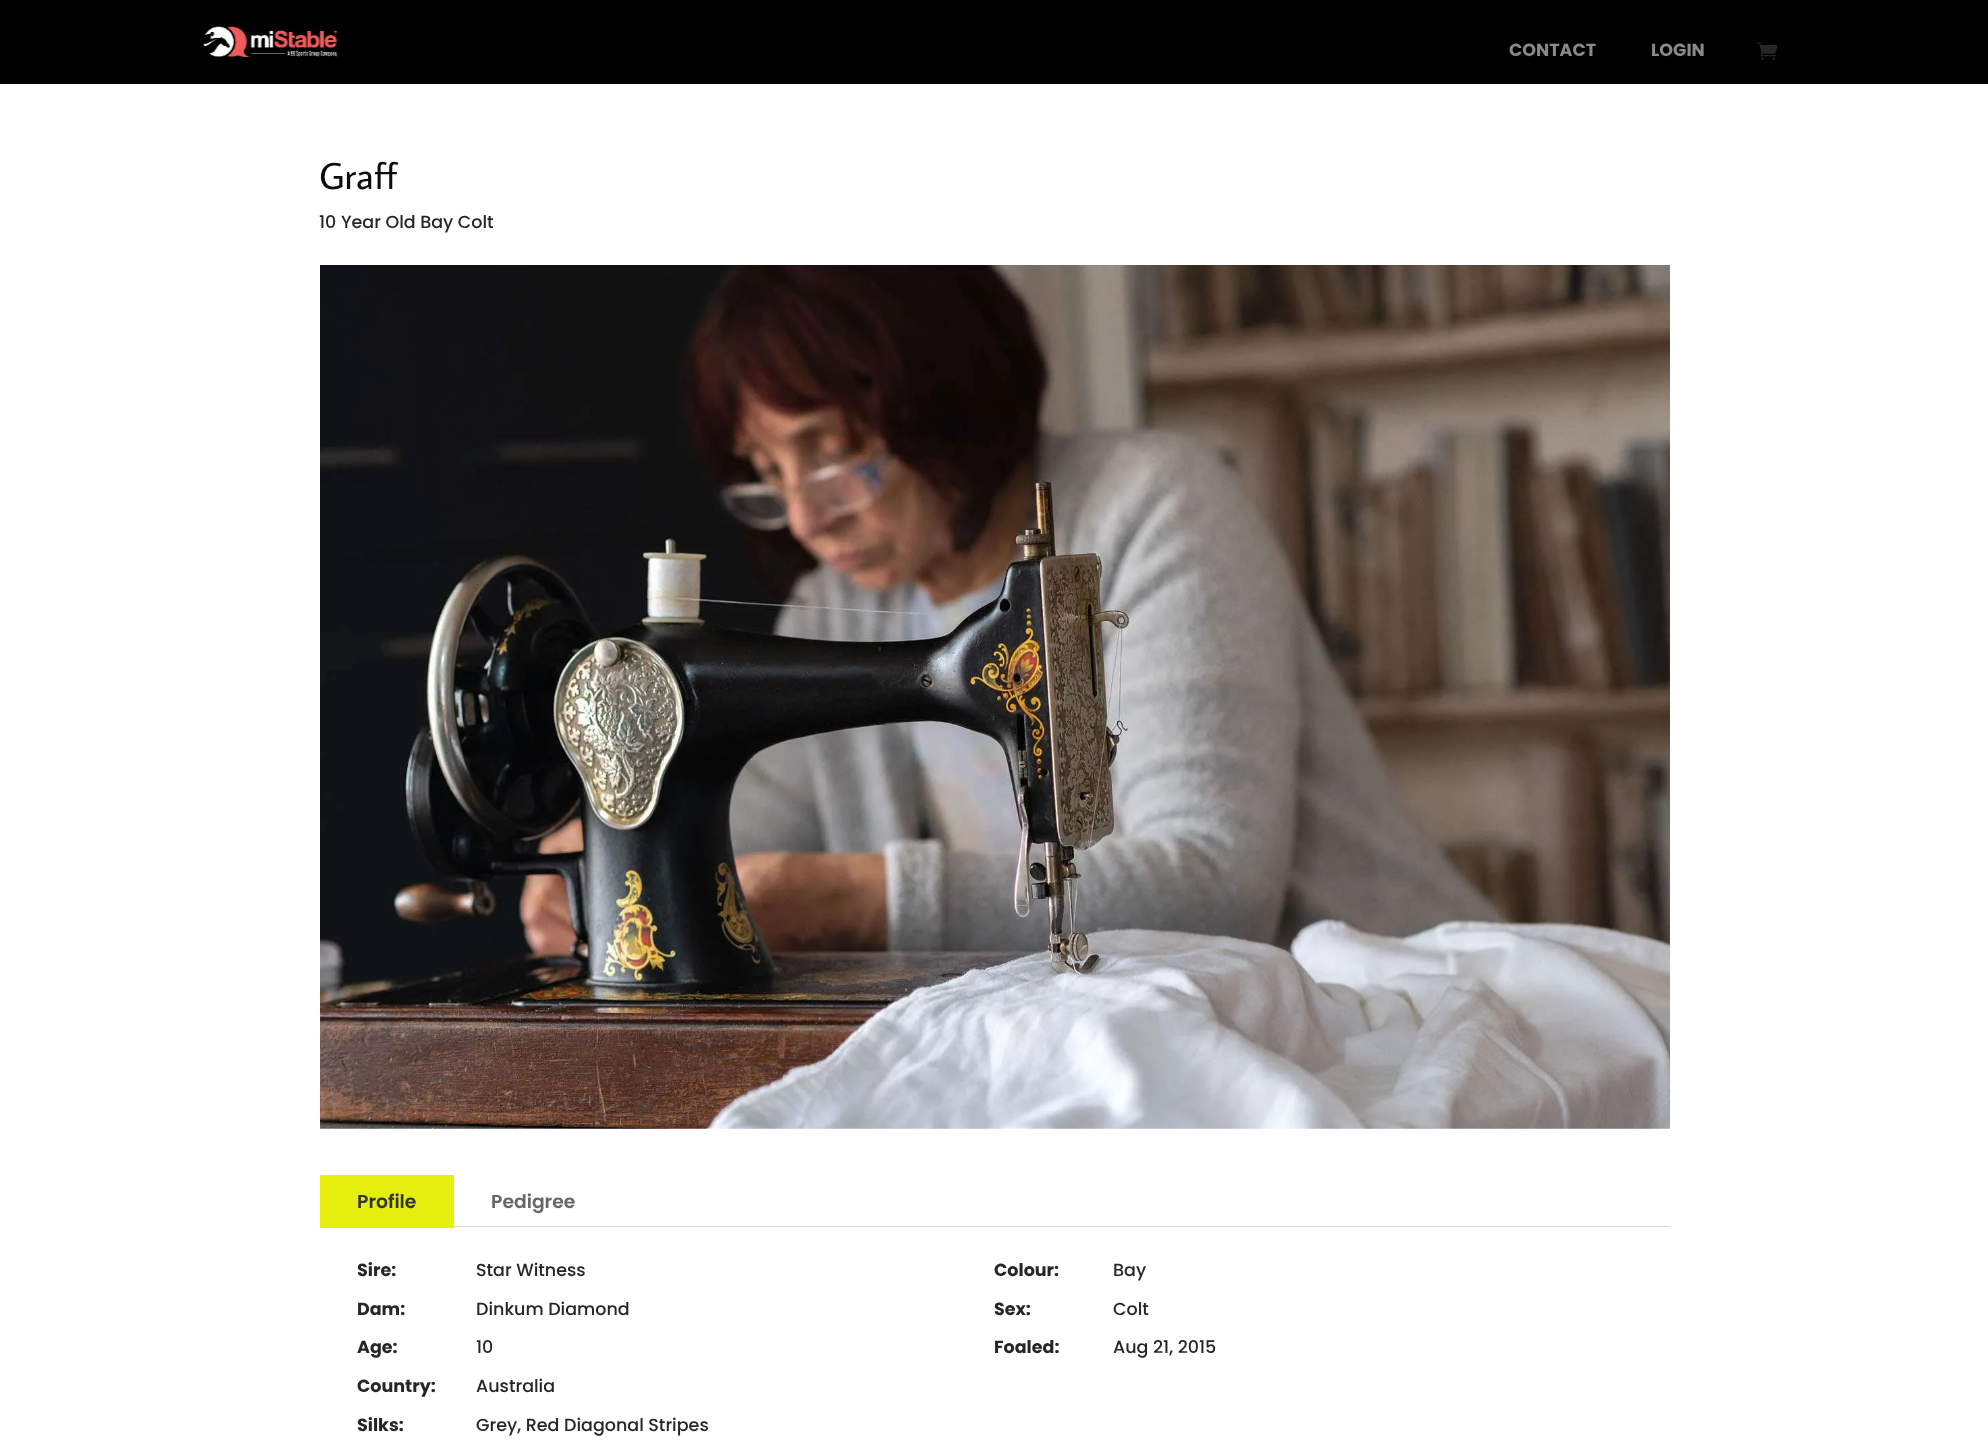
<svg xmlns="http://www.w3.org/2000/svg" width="1988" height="1455">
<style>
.a{font:bold 17.5px Poppins;fill:#898989}
.b{font:37.5px Average Sans;fill:#0c0c0c}
.c{font:500 17.5px Poppins;fill:#262626}
.d{font:600 18.75px Poppins;fill:#333}
.e{font:600 18.75px Poppins;fill:#666}
.f{font:bold 17.5px Poppins;fill:#262626}
</style>
<rect width="100%" height="100%" fill="#fff"/>
<path fill="#000" d="M0 0h1988v84H0z"/>
<image href="1.png" x="203" y="26" width="135" height="32"/>
<image href="2.png" x="1757" y="42" width="21" height="18"/>
<image href="3.png" x="320" y="265" width="1350" height="864"/>
<path fill="#e4ef0e" d="M320 1175h134v53H320z"/>
<path fill="#d9d9d9" d="M454 1226h1216v1H454z"/>
<text class="a" x="1509" y="56">CONTACT</text>
<text class="a" x="1651" y="56">LOGIN</text>
<text class="b" x="319" y="189">Graff</text>
<text class="c" x="319" y="228">10 Year Old Bay Colt</text>
<text class="d" x="357" y="1208">Profile</text>
<text class="e" x="491" y="1208">Pedigree</text>
<text class="f" x="357" y="1276">Sire:</text>
<text class="c" x="476" y="1276">Star Witness</text>
<text class="f" x="994" y="1276">Colour:</text>
<text class="c" x="1113" y="1276">Bay</text>
<text class="f" x="357" y="1315">Dam:</text>
<text class="c" x="476" y="1315">Dinkum Diamond</text>
<text class="f" x="994" y="1315">Sex:</text>
<text class="c" x="1113" y="1315">Colt</text>
<text class="f" x="357" y="1353">Age:</text>
<text class="c" x="476" y="1353">10</text>
<text class="f" x="994" y="1353">Foaled:</text>
<text class="c" x="1113" y="1353">Aug 21, 2015</text>
<text class="f" x="357" y="1392">Country:</text>
<text class="c" x="476" y="1392">Australia</text>
<text class="f" x="357" y="1431">Silks:</text>
<text class="c" x="476" y="1431">Grey, Red Diagonal Stripes</text>
</svg>
